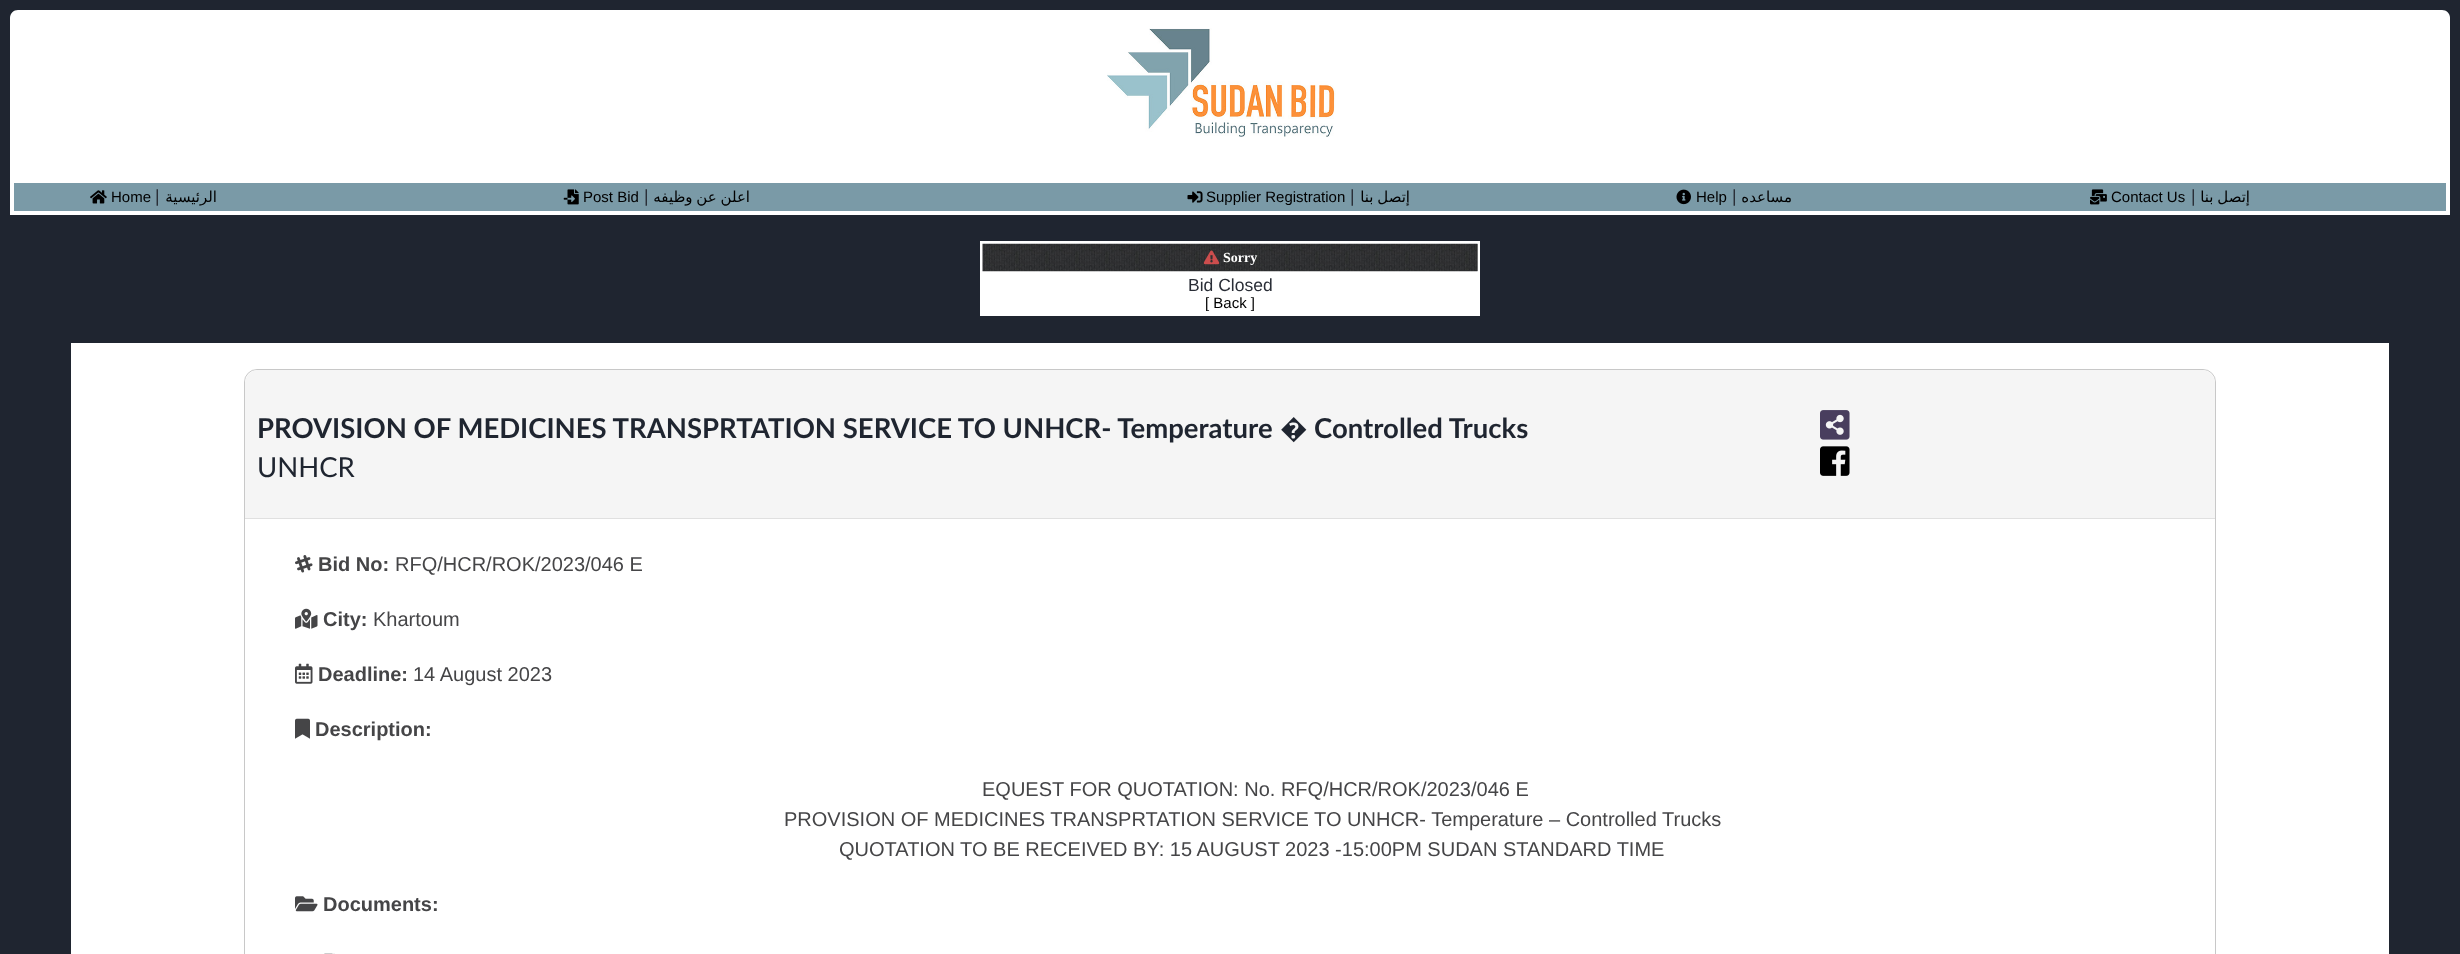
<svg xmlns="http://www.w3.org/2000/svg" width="2460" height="954">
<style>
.a{font:15px Liberation Sans;fill:#000}
.b{font:17.5px Liberation Sans;fill:#292d36}
.c{font:15px DejaVu Sans;direction:rtl;fill:#000}
.d{font:bold 14px Liberation Serif;fill:#fff}
.e{font:bold 27.5px Lato;fill:#1f2530}
.f{font:bold 27.5px Noto Sans;fill:#1f2530}
.g{font:27.5px Lato;fill:#1f2530}
.h{font:bold 20px Liberation Sans;fill:#454547}
.i{font:20px Liberation Sans;fill:#454547}
</style>
<rect width="100%" height="100%" fill="#1f2530"/>
<path fill="#fff" d="M18 10h2424c4.5 0 8 3.5 8 8v197h-2440v-197c0-4.5 3.5-8 8-8z"/>
<image href="1.png" x="1107" y="28" width="229" height="109"/>
<path fill="#7a9aa7" d="M14 183h2432v28H14z"/>
<image href="2.png" x="90" y="190" width="17" height="14"/>
<image href="3.png" x="563" y="189" width="16" height="16"/>
<image href="4.png" x="1187" y="191" width="16" height="12"/>
<image href="5.png" x="1676" y="189" width="15" height="16"/>
<image href="6.png" x="2090" y="189" width="17" height="16"/>
<path fill="#fff" d="M980 241h500v75H980z"/>
<path fill="#adadad" d="M1477 244h1v27H1477z"/>
<image href="7.png" x="982" y="243" width="496" height="29"/>
<image href="8.png" x="1203" y="250" width="17" height="15"/>
<path fill="#fff" d="M71 343h2318v611H71z"/>
<rect fill="none" stroke="#c8c8c8" x="244.5" y="369.5" width="1971" height="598" rx="12.5"/>
<path fill="#f5f5f5" d="M258 370h1944c7 0 13 6 13 13v136h-1970v-136c0-7 6-13 13-13z"/>
<path fill="#e0e0e0" d="M245 518h1970v1H245z"/>
<image href="9.png" x="1820" y="410" width="30" height="30"/>
<image href="10.png" x="1820" y="446" width="30" height="30"/>
<image href="11.png" x="295" y="555" width="18" height="18"/>
<image href="12.png" x="295" y="608" width="23" height="21"/>
<image href="13.png" x="295" y="663" width="18" height="21"/>
<image href="14.png" x="295" y="718" width="15" height="21"/>
<image href="15.png" x="295" y="896" width="23" height="16"/>
<image href="16.png" x="324" y="953" width="11" height="1"/>
<text class="a" x="111" y="202">Home</text>
<text class="b" x="155" y="202">|</text>
<text class="c" x="217" y="202">الرئيسية</text>
<text class="a" x="583" y="202">Post Bid</text>
<text class="b" x="644" y="202">|</text>
<text class="c" x="750" y="202" word-spacing="-1">اعلن عن وظيفه</text>
<text class="a" x="1206" y="202">Supplier Registration</text>
<text class="b" x="1350" y="202">|</text>
<text class="c" x="1410" y="202" word-spacing="-1">إتصل بنا</text>
<text class="a" x="1696" y="202">Help</text>
<text class="b" x="1732" y="202">|</text>
<text class="c" x="1792" y="202">مساعده</text>
<text class="a" x="2111" y="202">Contact Us</text>
<text class="b" x="2191" y="202">|</text>
<text class="c" x="2250" y="202" word-spacing="-1">إتصل بنا</text>
<text class="d" x="1223" y="262">Sorry</text>
<text class="b" x="1188" y="291">Bid Closed</text>
<text class="a" x="1205" y="308">[ Back ]</text>
<text class="e" x="257" y="438">PROVISION OF MEDICINES TRANSPRTATION SERVICE TO UNHCR- Temperature</text>
<text class="f" x="1280" y="438">�</text>
<text class="e" x="1314" y="438">Controlled Trucks</text>
<text class="g" x="257" y="477">UNHCR</text>
<text class="h" x="318" y="571">Bid No:</text>
<text class="i" x="395" y="571">RFQ/HCR/ROK/2023/046 E</text>
<text class="h" x="323" y="626">City:</text>
<text class="i" x="373" y="626">Khartoum</text>
<text class="h" x="318" y="681">Deadline:</text>
<text class="i" x="413" y="681">14 August 2023</text>
<text class="h" x="315" y="736">Description:</text>
<text class="i" x="982" y="796">EQUEST FOR QUOTATION: No. RFQ/HCR/ROK/2023/046 E</text>
<text class="i" x="784" y="826">PROVISION OF MEDICINES TRANSPRTATION SERVICE TO UNHCR- Temperature – Controlled Trucks</text>
<text class="i" x="839" y="856">QUOTATION TO BE RECEIVED BY: 15 AUGUST 2023 -15:00PM SUDAN STANDARD TIME</text>
<text class="h" x="323" y="911">Documents:</text>
</svg>
